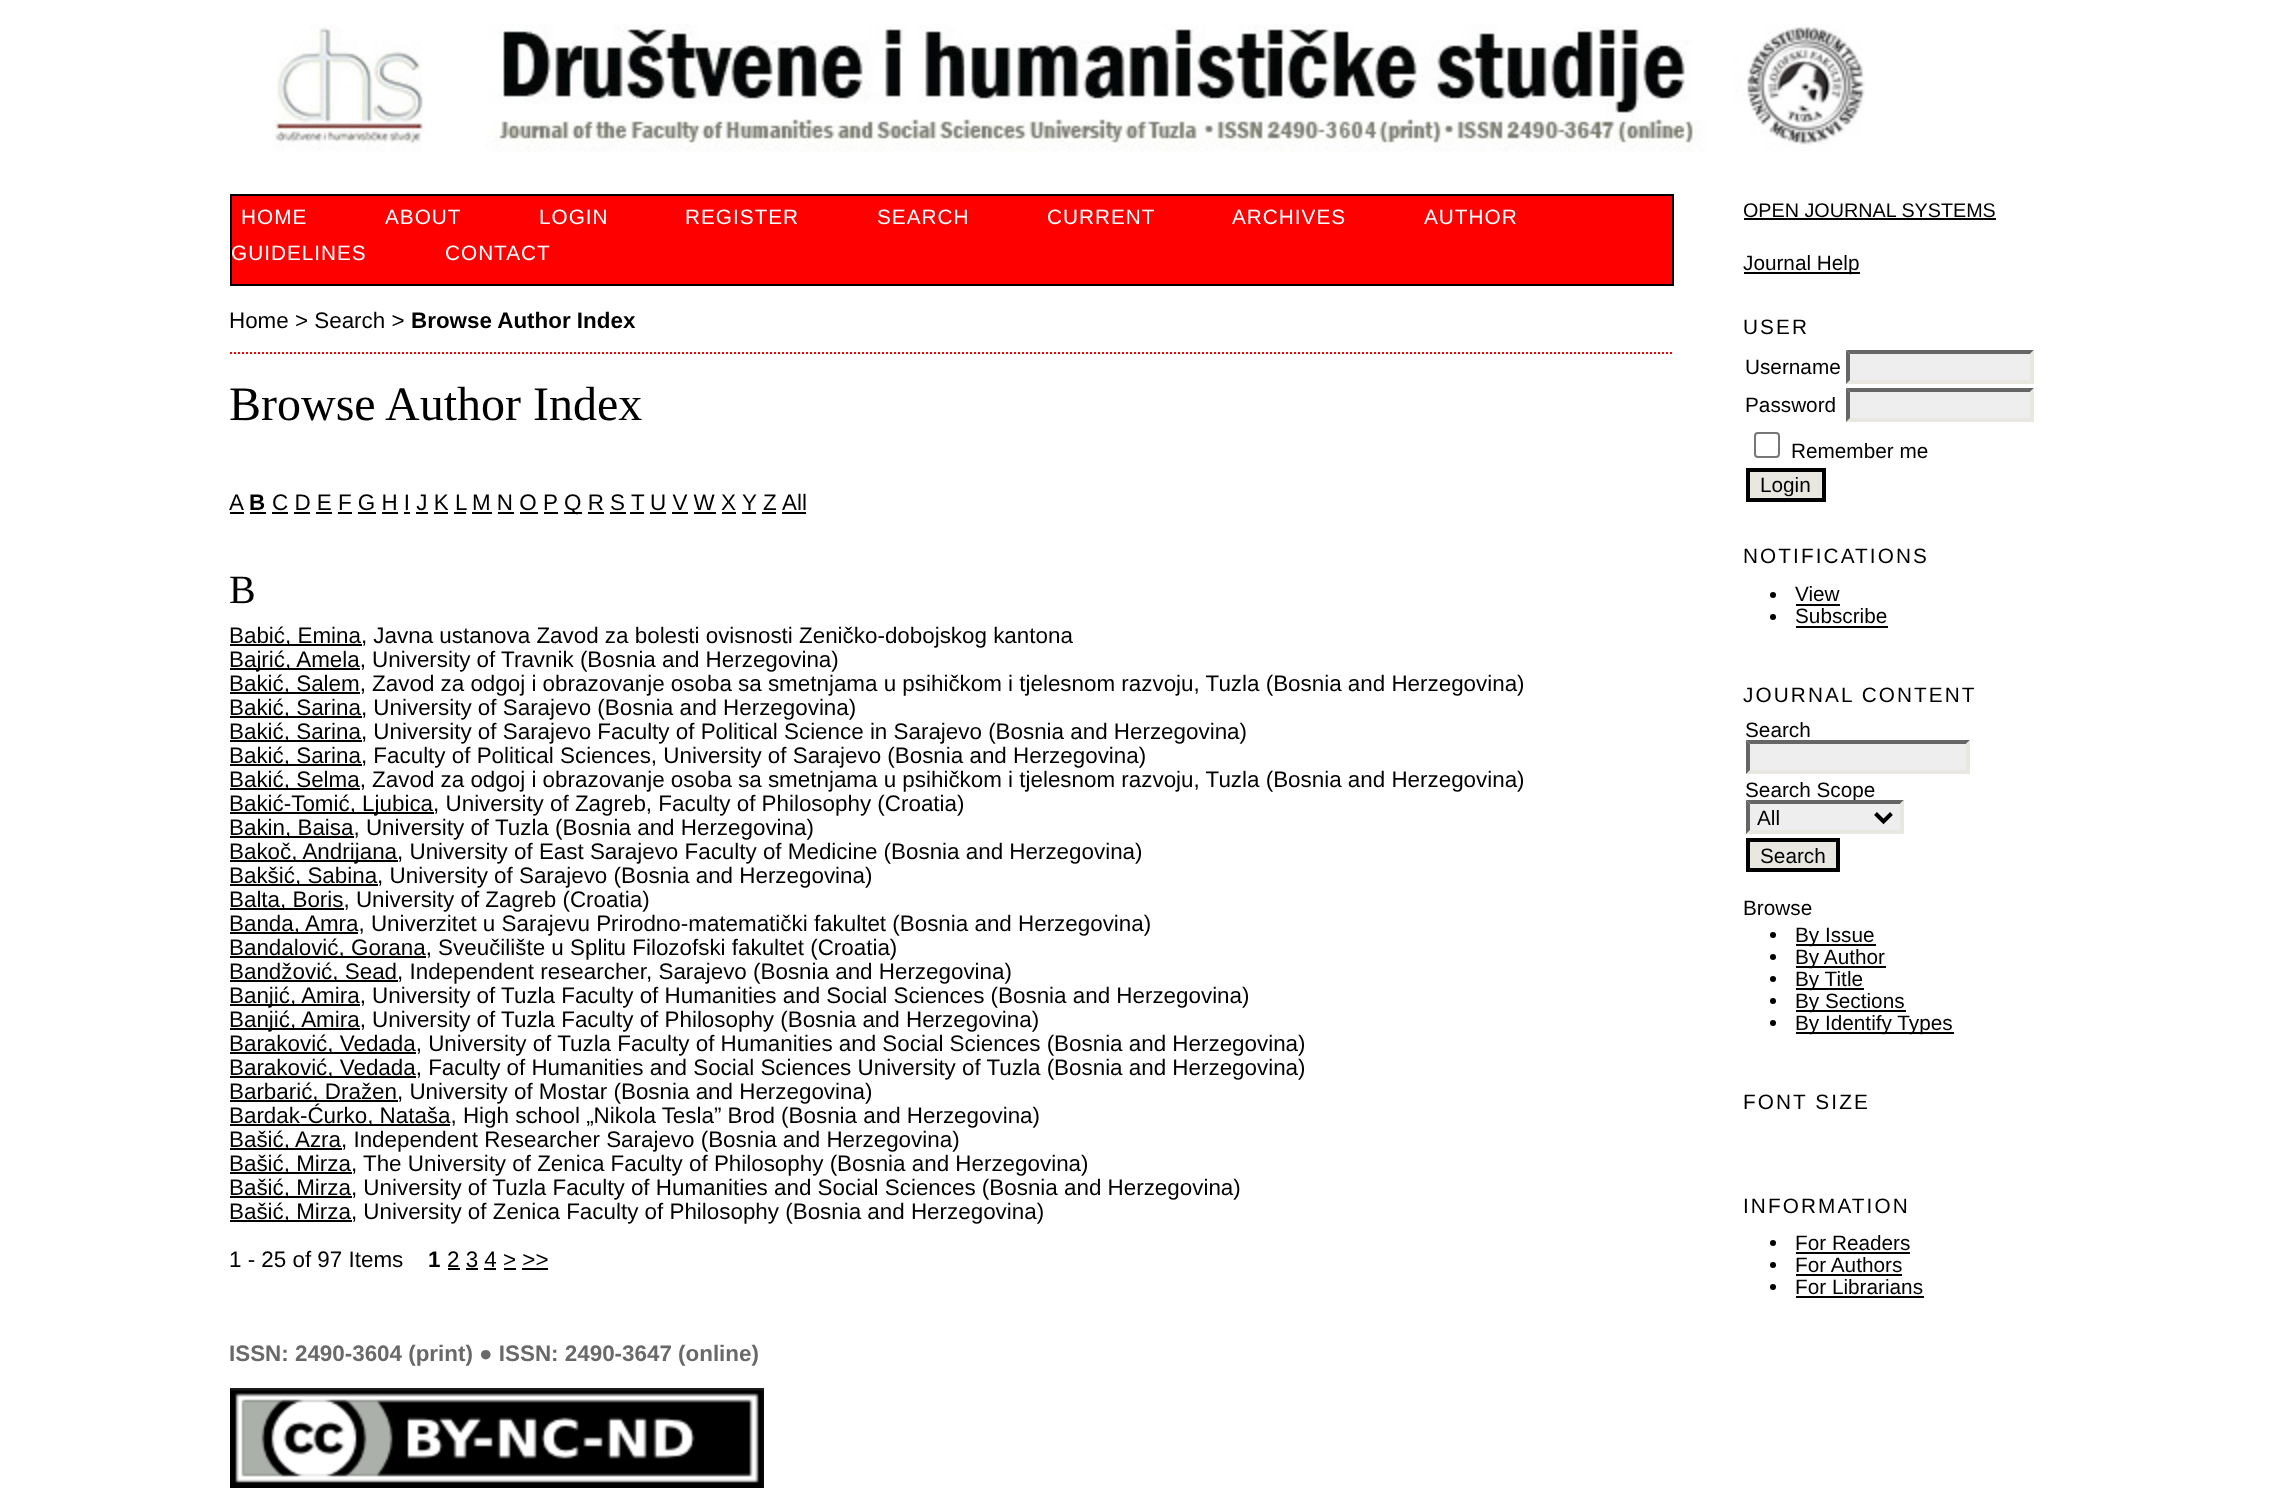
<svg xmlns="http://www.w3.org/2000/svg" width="2294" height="1495">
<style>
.a{font:20.75px Liberation Sans;letter-spacing:1px;fill:#fff}
.b{font:22.4px Liberation Sans;fill:#000}
.c{font:bold 22.4px Liberation Sans;fill:#000}
.d{font:48px Liberation Serif;fill:#000}
.e{font:40px Liberation Serif;fill:#000}
.f{font:bold 22.4px Liberation Sans;fill:#696969}
.g{font:19.75px Liberation Sans;fill:#000}
.h{font:20.75px Liberation Sans;fill:#000}
.i{font:20.75px Liberation Sans;letter-spacing:2.1px;fill:#000}
</style>
<rect width="100%" height="100%" fill="#fff"/>
<image href="1.png" x="272" y="24" width="1593" height="128"/>
<path fill="#f00" stroke="#000" stroke-width="2" d="M231 195h1442v90H231z"/>
<path fill="none" stroke="#f00" stroke-width="2" stroke-dasharray="2 2" d="M230 353h1444"/>
<path fill="#000" d="M230 512h14v2H230z"/>
<path fill="#000" d="M250 512h16v2H250z"/>
<path fill="#000" d="M272 512h16v2H272z"/>
<path fill="#000" d="M472 512h20v2H472z"/>
<path fill="#000" d="M564 512h18v2H564z"/>
<path fill="#000" d="M630 512h14v2H630z"/>
<path fill="#000" d="M650 512h16v2H650z"/>
<path fill="#000" d="M742 512h14v2H742z"/>
<path fill="#000" d="M762 512h14v2H762z"/>
<path fill="#000" d="M782 512h24v2H782z"/>
<path fill="#000" d="M294 512h16v2H294z"/>
<path fill="#000" d="M316 512h16v2H316z"/>
<path fill="#000" d="M338 512h14v2H338z"/>
<path fill="#000" d="M358 512h18v2H358z"/>
<path fill="#000" d="M382 512h16v2H382z"/>
<path fill="#000" d="M404 512h6v2H404z"/>
<path fill="#000" d="M416 512h12v2H416z"/>
<path fill="#000" d="M434 512h14v2H434z"/>
<path fill="#000" d="M454 512h12v2H454z"/>
<path fill="#000" d="M498 512h16v2H498z"/>
<path fill="#000" d="M520 512h18v2H520z"/>
<path fill="#000" d="M544 512h14v2H544z"/>
<path fill="#000" d="M588 512h16v2H588z"/>
<path fill="#000" d="M610 512h16v2H610z"/>
<path fill="#000" d="M672 512h16v2H672z"/>
<path fill="#000" d="M694 512h22v2H694z"/>
<path fill="#000" d="M722 512h14v2H722z"/>
<path fill="#000" d="M230 644h132v2H230z"/>
<path fill="#000" d="M230 668h130v2H230z"/>
<path fill="#000" d="M230 692h130v2H230z"/>
<path fill="#000" d="M230 716h132v2H230z"/>
<path fill="#000" d="M230 740h132v2H230z"/>
<path fill="#000" d="M230 764h132v2H230z"/>
<path fill="#000" d="M230 788h130v2H230z"/>
<path fill="#000" d="M230 812h204v2H230z"/>
<path fill="#000" d="M230 836h124v2H230z"/>
<path fill="#000" d="M230 860h168v2H230z"/>
<path fill="#000" d="M230 884h148v2H230z"/>
<path fill="#000" d="M230 908h114v2H230z"/>
<path fill="#000" d="M230 932h128v2H230z"/>
<path fill="#000" d="M230 956h196v2H230z"/>
<path fill="#000" d="M230 980h168v2H230z"/>
<path fill="#000" d="M230 1004h130v2H230z"/>
<path fill="#000" d="M230 1028h130v2H230z"/>
<path fill="#000" d="M230 1052h186v2H230z"/>
<path fill="#000" d="M230 1076h186v2H230z"/>
<path fill="#000" d="M230 1100h168v2H230z"/>
<path fill="#000" d="M230 1124h220v2H230z"/>
<path fill="#000" d="M230 1148h112v2H230z"/>
<path fill="#000" d="M230 1172h122v2H230z"/>
<path fill="#000" d="M230 1196h122v2H230z"/>
<path fill="#000" d="M230 1220h122v2H230z"/>
<path fill="#000" d="M448 1268h12v2H448z"/>
<path fill="#000" d="M466 1268h12v2H466z"/>
<path fill="#000" d="M484 1268h12v2H484z"/>
<path fill="#000" d="M504 1268h12v2H504z"/>
<path fill="#000" d="M522 1268h26v2H522z"/>
<image href="2.png" x="230" y="1388" width="534" height="100"/>
<path fill="#000" d="M1744 218h252v2H1744z"/>
<path fill="#000" d="M1744 272h116v2H1744z"/>
<path fill="#eee" d="M1846 350h188v34H1846z"/>
<path fill="#666" d="M1846 350h188l-4 4h-180z"/>
<path fill="#e8e8e1" d="M2034 350v34l-4-4v-26z"/>
<path fill="#e8e8e1" d="M2034 384h-188l4-4h180z"/>
<path fill="#666" d="M1846 384v-34l4 4v26z"/>
<path fill="#eee" d="M1846 388h188v34H1846z"/>
<path fill="#666" d="M1846 388h188l-4 4h-180z"/>
<path fill="#e8e8e1" d="M2034 388v34l-4-4v-26z"/>
<path fill="#e8e8e1" d="M2034 422h-188l4-4h180z"/>
<path fill="#666" d="M1846 422v-34l4 4v26z"/>
<rect fill="none" stroke="#767676" stroke-width="2" x="1755" y="433" width="24" height="24" rx="3"/>
<path fill="#e8e8e1" stroke="#000" stroke-width="4" d="M1748 470h76v30H1748z"/>
<circle fill="#000" cx="1773" cy="595" r="3"/>
<path fill="#000" d="M1796 604h44v2H1796z"/>
<circle fill="#000" cx="1773" cy="617" r="3"/>
<path fill="#000" d="M1796 626h92v2H1796z"/>
<path fill="#eee" d="M1746 740h224v34H1746z"/>
<path fill="#666" d="M1746 740h224l-4 4h-216z"/>
<path fill="#e8e8e1" d="M1970 740v34l-4-4v-26z"/>
<path fill="#e8e8e1" d="M1970 774h-224l4-4h216z"/>
<path fill="#666" d="M1746 774v-34l4 4v26z"/>
<path fill="#e8e8e1" stroke="#000" stroke-width="4" d="M1748 840h90v30H1748z"/>
<circle fill="#000" cx="1773" cy="935" r="3"/>
<path fill="#000" d="M1796 944h80v2H1796z"/>
<circle fill="#000" cx="1773" cy="957" r="3"/>
<path fill="#000" d="M1796 966h90v2H1796z"/>
<circle fill="#000" cx="1773" cy="979" r="3"/>
<path fill="#000" d="M1796 988h68v2H1796z"/>
<circle fill="#000" cx="1773" cy="1001" r="3"/>
<path fill="#000" d="M1796 1010h110v2H1796z"/>
<circle fill="#000" cx="1773" cy="1023" r="3"/>
<path fill="#000" d="M1796 1032h158v2H1796z"/>
<circle fill="#000" cx="1773" cy="1243" r="3"/>
<path fill="#000" d="M1796 1252h114v2H1796z"/>
<circle fill="#000" cx="1773" cy="1265" r="3"/>
<path fill="#000" d="M1796 1274h106v2H1796z"/>
<circle fill="#000" cx="1773" cy="1287" r="3"/>
<path fill="#000" d="M1796 1296h128v2H1796z"/>
<text class="a" x="241" y="224">HOME</text>
<text class="a" x="385" y="224">ABOUT</text>
<text class="a" x="539" y="224">LOGIN</text>
<text class="a" x="685" y="224">REGISTER</text>
<text class="a" x="877" y="224">SEARCH</text>
<text class="a" x="1047" y="224">CURRENT</text>
<text class="a" x="1232" y="224">ARCHIVES</text>
<text class="a" x="1424" y="224">AUTHOR</text>
<text class="a" x="231" y="260">GUIDELINES</text>
<text class="a" x="445" y="260">CONTACT</text>
<text class="b" x="229" y="328">Home &gt; Search &gt;</text>
<text class="c" x="411" y="328">Browse Author Index</text>
<text class="d" x="229" y="420">Browse Author Index</text>
<text class="b" x="229" y="510">A</text>
<text class="c" x="249" y="510">B</text>
<text class="b" x="272" y="510">C D E F G H I J K L</text>
<text class="b" x="472" y="510">M N O P</text>
<text class="b" x="564" y="510">Q R S</text>
<text class="b" x="631" y="510">T</text>
<text class="b" x="650" y="510">U V W X</text>
<text class="b" x="742" y="510">Y</text>
<text class="b" x="763" y="510">Z</text>
<text class="b" x="782" y="510">All</text>
<text class="e" x="229" y="603">B</text>
<text class="b" x="229" y="643">Babić, Emina, Javna ustanova Zavod za bolesti ovisnosti Zeničko-dobojskog kantona</text>
<text class="b" x="229" y="667">Bajrić, Amela, University of Travnik (Bosnia and Herzegovina)</text>
<text class="b" x="229" y="691">Bakić, Salem, Zavod za odgoj i obrazovanje osoba sa smetnjama u psihičkom i tjelesnom razvoju, Tuzla (Bosnia and Herzegovina)</text>
<text class="b" x="229" y="715">Bakić, Sarina, University of Sarajevo (Bosnia and Herzegovina)</text>
<text class="b" x="229" y="739">Bakić, Sarina, University of Sarajevo Faculty of Political Science in Sarajevo (Bosnia and Herzegovina)</text>
<text class="b" x="229" y="763">Bakić, Sarina, Faculty of Political Sciences, University of Sarajevo (Bosnia and Herzegovina)</text>
<text class="b" x="229" y="787">Bakić, Selma, Zavod za odgoj i obrazovanje osoba sa smetnjama u psihičkom i tjelesnom razvoju, Tuzla (Bosnia and Herzegovina)</text>
<text class="b" x="229" y="811">Bakić-Tomić, Ljubica, University of Zagreb, Faculty of Philosophy (Croatia)</text>
<text class="b" x="229" y="835">Bakin, Baisa, University of Tuzla (Bosnia and Herzegovina)</text>
<text class="b" x="229" y="859">Bakoč, Andrijana, University of East Sarajevo Faculty of Medicine (Bosnia and Herzegovina)</text>
<text class="b" x="229" y="883">Bakšić, Sabina, University of Sarajevo (Bosnia and Herzegovina)</text>
<text class="b" x="229" y="907">Balta, Boris, University of Zagreb (Croatia)</text>
<text class="b" x="229" y="931">Banda, Amra, Univerzitet u Sarajevu Prirodno-matematički fakultet (Bosnia and Herzegovina)</text>
<text class="b" x="229" y="955">Bandalović, Gorana, Sveučilište u Splitu Filozofski fakultet (Croatia)</text>
<text class="b" x="229" y="979">Bandžović, Sead, Independent researcher, Sarajevo (Bosnia and Herzegovina)</text>
<text class="b" x="229" y="1003">Banjić, Amira, University of Tuzla Faculty of Humanities and Social Sciences (Bosnia and Herzegovina)</text>
<text class="b" x="229" y="1027">Banjić, Amira, University of Tuzla Faculty of Philosophy (Bosnia and Herzegovina)</text>
<text class="b" x="229" y="1051">Baraković, Vedada, University of Tuzla Faculty of Humanities and Social Sciences (Bosnia and Herzegovina)</text>
<text class="b" x="229" y="1075">Baraković, Vedada, Faculty of Humanities and Social Sciences University of Tuzla (Bosnia and Herzegovina)</text>
<text class="b" x="229" y="1099">Barbarić, Dražen, University of Mostar (Bosnia and Herzegovina)</text>
<text class="b" x="229" y="1123">Bardak-Ćurko, Nataša, High school „Nikola Tesla” Brod (Bosnia and Herzegovina)</text>
<text class="b" x="229" y="1147">Bašić, Azra, Independent Researcher Sarajevo (Bosnia and Herzegovina)</text>
<text class="b" x="229" y="1171">Bašić, Mirza, The University of Zenica Faculty of Philosophy (Bosnia and Herzegovina)</text>
<text class="b" x="229" y="1195">Bašić, Mirza, University of Tuzla Faculty of Humanities and Social Sciences (Bosnia and Herzegovina)</text>
<text class="b" x="229" y="1219">Bašić, Mirza, University of Zenica Faculty of Philosophy (Bosnia and Herzegovina)</text>
<text class="b" x="229" y="1267">1 - 25 of 97 Items</text>
<text class="c" x="428" y="1267">1</text>
<text class="b" x="447" y="1267">2 3 4 &gt; &gt;&gt;</text>
<text class="f" x="229" y="1361">ISSN: 2490-3604 (print) ● ISSN: 2490-3647 (online)</text>
<text class="g" x="1743" y="217">OPEN JOURNAL SYSTEMS</text>
<text class="h" x="1743" y="270">Journal Help</text>
<text class="i" x="1743" y="334">USER</text>
<text class="h" x="1745" y="374">Username</text>
<text class="h" x="1745" y="412">Password</text>
<text class="h" x="1791" y="458">Remember me</text>
<text class="h" x="1760" y="492">Login</text>
<text class="i" x="1743" y="563">NOTIFICATIONS</text>
<text class="h" x="1795" y="601">View</text>
<text class="h" x="1795" y="623">Subscribe</text>
<text class="i" x="1743" y="702">JOURNAL CONTENT</text>
<text class="h" x="1745" y="737">Search</text>
<text class="h" x="1745" y="797">Search Scope</text>
<path fill="#eee" d="M1746 800h158v34H1746z"/>
<path fill="#666" d="M1746 800h158l-4 4h-150z"/>
<path fill="#e8e8e1" d="M1904 800v34l-4-4v-26z"/>
<path fill="#e8e8e1" d="M1904 834h-158l4-4h150z"/>
<path fill="#666" d="M1746 834v-34l4 4v26z"/>
<path fill="none" stroke="#000" stroke-width="4" d="M1875.5 813.5l8 8l8-8"/>
<text class="h" x="1757" y="825">All</text>
<text class="h" x="1760" y="863">Search</text>
<text class="h" x="1743" y="915">Browse</text>
<text class="h" x="1795" y="942">By Issue</text>
<text class="h" x="1795" y="964">By Author</text>
<text class="h" x="1795" y="986">By Title</text>
<text class="h" x="1795" y="1008">By Sections</text>
<text class="h" x="1795" y="1030">By Identify Types</text>
<text class="i" x="1743" y="1109">FONT SIZE</text>
<text class="i" x="1743" y="1213">INFORMATION</text>
<text class="h" x="1795" y="1250">For Readers</text>
<text class="h" x="1795" y="1272">For Authors</text>
<text class="h" x="1795" y="1294">For Librarians</text>
</svg>
